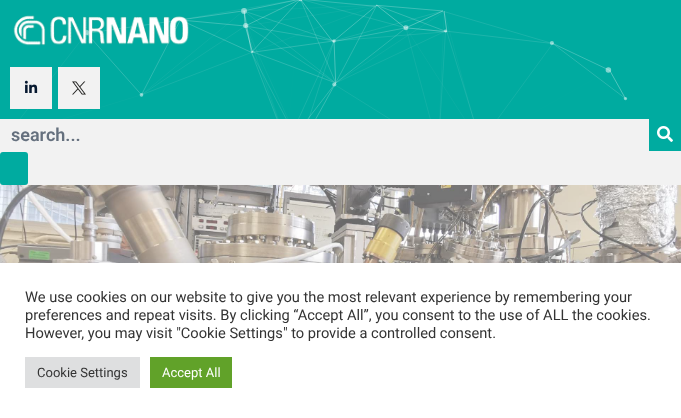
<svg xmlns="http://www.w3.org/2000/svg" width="681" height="418">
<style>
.a{font:600 18px Roboto;fill:#65707e}
.b{font:14.65px Roboto;fill:#333}
.c{font:13px Roboto;fill:#333}
.d{font:13px Roboto;fill:#fff}
</style>
<rect width="100%" height="100%" fill="#fff"/>
<path fill="#00aba0" d="M0 0h681v119H0z"/>
<image href="1.png" x="20" y="0" width="608" height="119"/>
<image href="2.png" x="13" y="15" width="176" height="31"/>
<path fill="#f2f2f2" d="M10 67h42v42H10z"/>
<image href="3.png" x="24" y="80" width="14" height="13"/>
<path fill="#f2f2f2" d="M58 67h42v42H58z"/>
<image href="4.png" x="72" y="81" width="14" height="14"/>
<path fill="#f2f2f2" d="M0 119h649v32H0z"/>
<path fill="#00aba0" d="M649 119h32v32H649z"/>
<image href="5.png" x="657" y="126" width="16" height="16"/>
<path fill="#f2f2f2" d="M0 151h681v34H0z"/>
<rect fill="#00aba0" y="152" width="28" height="33" rx="3"/>
<image href="6.png" x="0" y="185" width="681" height="78"/>
<path fill="#acabab4d" filter="blur(5px)" d="M0 262h681v155H0z"/>
<path fill="#fff" d="M0 263h681v155H0z"/>
<path fill="#dedfe0" d="M25 357h115v31H25z"/>
<path fill="#61a229" d="M150 357h82v31H150z"/>
<text class="a" x="11" y="141">search...</text>
<text class="b" x="25" y="302">We use cookies on our website to give you the most relevant experience by remembering your</text>
<text class="b" x="25" y="320">preferences and repeat visits. By clicking “Accept All”, you consent to the use of ALL the cookies.</text>
<text class="b" x="25" y="338">However, you may visit "Cookie Settings" to provide a controlled consent.</text>
<text class="c" x="37" y="377">Cookie Settings</text>
<text class="d" x="162" y="377">Accept All</text>
</svg>
